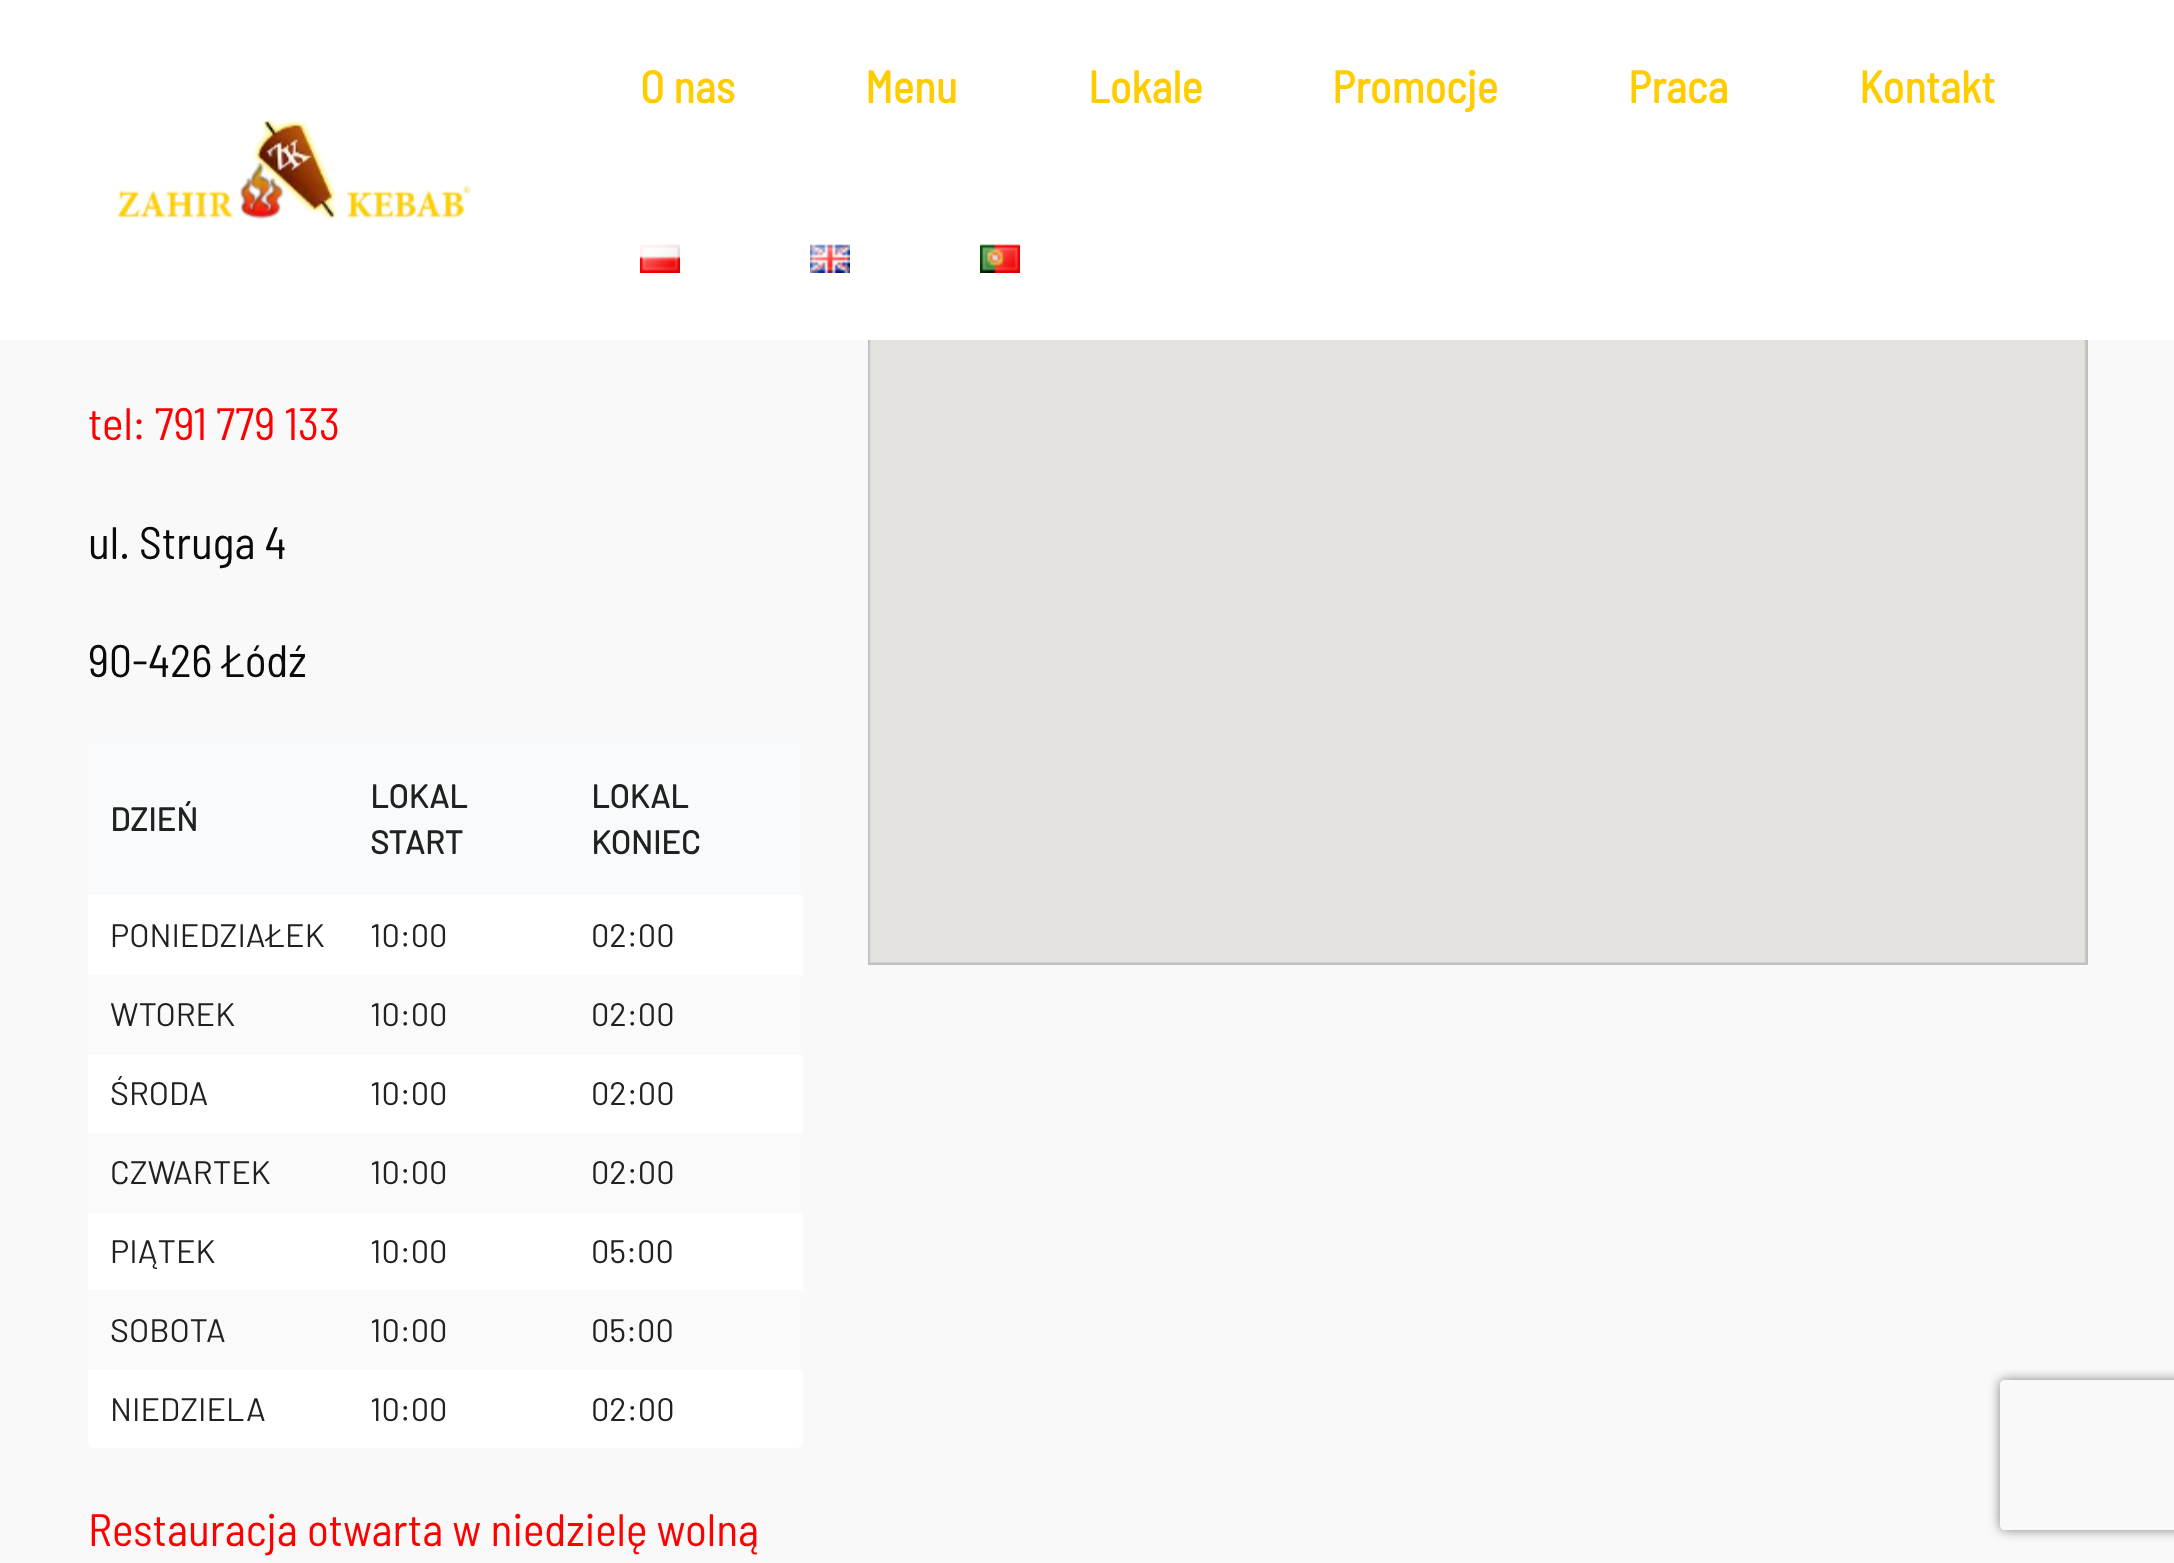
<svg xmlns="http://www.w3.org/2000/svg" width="2174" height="1563">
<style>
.a{font:bold 45px Barlow Semi Condensed;fill:#fc0}
.b{font:45.5px Barlow Semi Condensed;fill:#f00}
.c{font:45.5px Barlow Semi Condensed;fill:#0a0a0a}
.d{font:bold 32.5px Barlow;fill:#202121}
.e{font:32.5px Barlow;fill:#202121}
</style>
<defs>
<clipPath id="clip1"><path d="M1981 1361h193v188h-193zm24 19h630c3 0 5 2 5 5v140c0 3-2 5-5 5h-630c-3 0-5-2-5-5v-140c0-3 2-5 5-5z" clip-rule="evenodd"/></clipPath>
</defs>
<rect width="100%" height="100%" fill="#f9f9f9"/>
<path fill="#fff" d="M0 0h2174v340H0z"/>
<image href="1.png" x="640" y="244" width="40" height="29"/>
<image href="2.png" x="810" y="244" width="40" height="29"/>
<image href="3.png" x="980" y="244" width="40" height="29"/>
<image href="4.png" x="117" y="119" width="354" height="101"/>
<rect fill="#fff" x="88" y="743" width="715" height="705" rx="8"/>
<path fill="#f9fafb" d="M96 743h252v152h-260v-144c0-4.5 3.5-8 8-8z"/>
<path fill="#f9fafb" d="M348 743h220v152H348z"/>
<path fill="#f9fafb" d="M568 743h227c4.5 0 8 3.5 8 8v144h-235z"/>
<path fill="#fafafb" d="M88 975h715v80H88z"/>
<path fill="#fafafb" d="M88 1133h715v80H88z"/>
<path fill="#fafafb" d="M88 1290h715v80H88z"/>
<image href="5.png" x="868" y="340" width="1220" height="625"/>
<g clip-path="url(#clip1)">
<rect fill="#808080" filter="blur(6px)" x="2000" y="1380" width="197" height="150" rx="5"/>
</g>
<text class="a" x="640" y="103">O nas</text>
<text class="a" x="865" y="103">Menu</text>
<text class="a" x="1088" y="103">Lokale</text>
<text class="a" x="1332" y="103">Promocje</text>
<text class="a" x="1628" y="103">Praca</text>
<text class="a" x="1859" y="103">Kontakt</text>
<text class="b" x="88" y="440">tel: 791 779 133</text>
<text class="c" x="88" y="559">ul. Struga 4</text>
<text class="c" x="88" y="677">90-426 Łódź</text>
<text class="d" x="110" y="831">DZIEŃ</text>
<text class="d" x="370" y="808">LOKAL</text>
<text class="d" x="370" y="854">START</text>
<text class="d" x="591" y="808">LOKAL</text>
<text class="d" x="591" y="854">KONIEC</text>
<text class="e" x="110" y="947">PONIEDZIAŁEK</text>
<text class="e" x="370" y="947">10:00</text>
<text class="e" x="591" y="947">02:00</text>
<text class="e" x="110" y="1026">WTOREK</text>
<text class="e" x="370" y="1026">10:00</text>
<text class="e" x="591" y="1026">02:00</text>
<text class="e" x="110" y="1105">ŚRODA</text>
<text class="e" x="370" y="1105">10:00</text>
<text class="e" x="591" y="1105">02:00</text>
<text class="e" x="110" y="1184">CZWARTEK</text>
<text class="e" x="370" y="1184">10:00</text>
<text class="e" x="591" y="1184">02:00</text>
<text class="e" x="110" y="1263">PIĄTEK</text>
<text class="e" x="370" y="1263">10:00</text>
<text class="e" x="591" y="1263">05:00</text>
<text class="e" x="110" y="1342">SOBOTA</text>
<text class="e" x="370" y="1342">10:00</text>
<text class="e" x="591" y="1342">05:00</text>
<text class="e" x="110" y="1421">NIEDZIELA</text>
<text class="e" x="370" y="1421">10:00</text>
<text class="e" x="591" y="1421">02:00</text>
<text class="b" x="88" y="1546">Restauracja otwarta w niedzielę wolną</text>
</svg>
